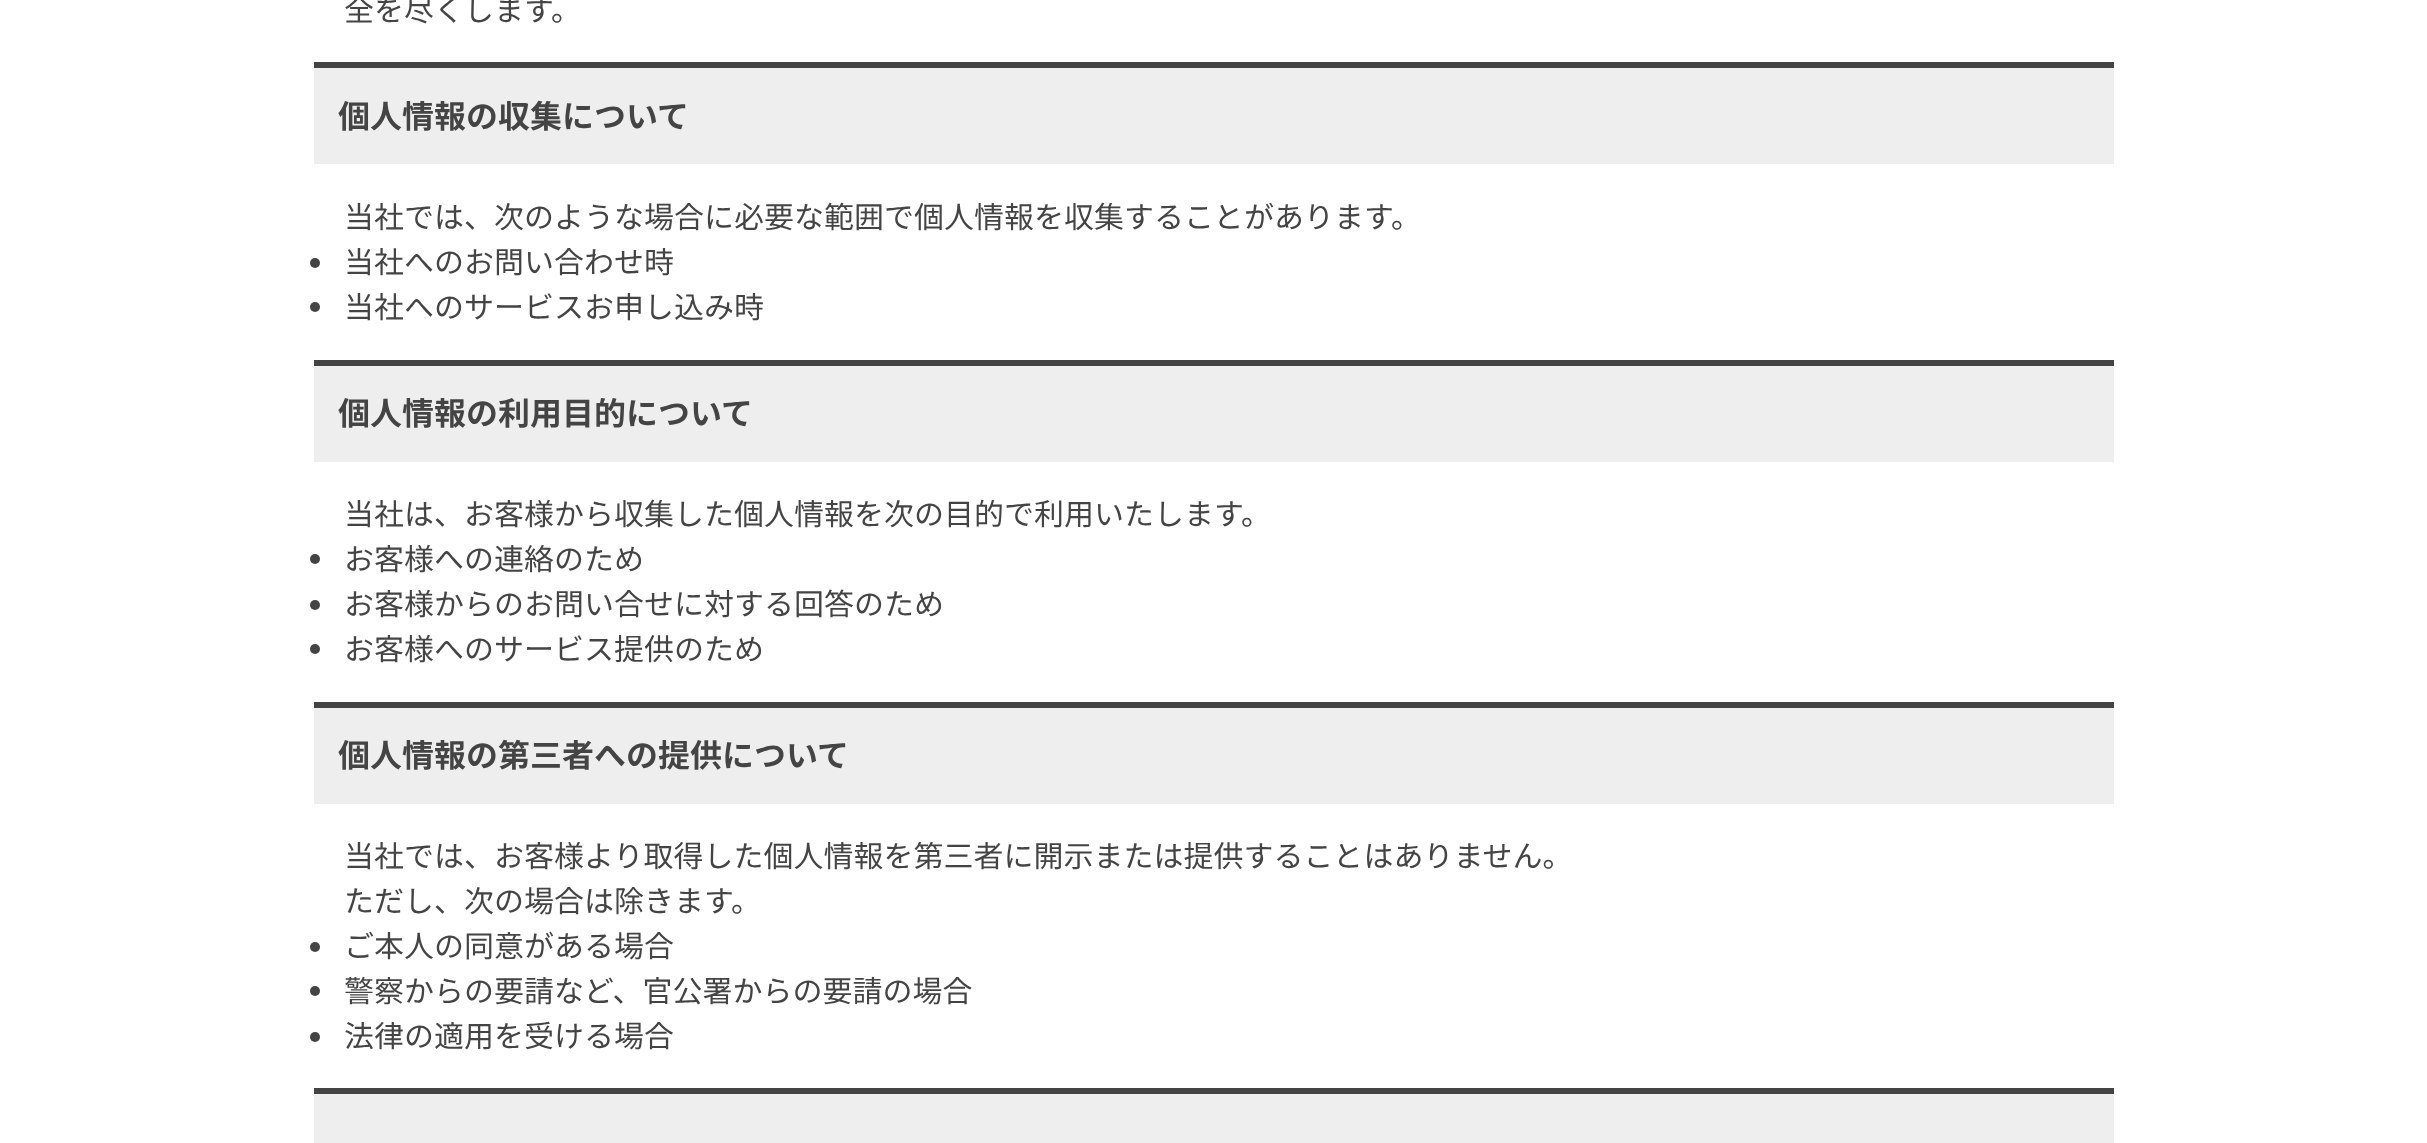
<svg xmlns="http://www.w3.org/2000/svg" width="2427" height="1143">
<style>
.a{font:30px Noto Sans JP;fill:#444}
.b{font:bold 32px Noto Sans JP;fill:#444}
</style>
<rect width="100%" height="100%" fill="#fff"/>
<path fill="#eee" d="M314 68h1800v96H314z"/>
<path fill="#444" d="M314 62h1800v6H314z"/>
<circle fill="#444" cx="315" cy="263" r="5"/>
<circle fill="#444" cx="315" cy="307" r="5"/>
<path fill="#eee" d="M314 366h1800v96H314z"/>
<path fill="#444" d="M314 360h1800v6H314z"/>
<circle fill="#444" cx="315" cy="559" r="5"/>
<circle fill="#444" cx="315" cy="605" r="5"/>
<circle fill="#444" cx="315" cy="649" r="5"/>
<path fill="#eee" d="M314 708h1800v96H314z"/>
<path fill="#444" d="M314 702h1800v6H314z"/>
<circle fill="#444" cx="315" cy="947" r="5"/>
<circle fill="#444" cx="315" cy="991" r="5"/>
<circle fill="#444" cx="315" cy="1037" r="5"/>
<path fill="#eee" d="M314 1094h1800v49H314z"/>
<path fill="#444" d="M314 1088h1800v6H314z"/>
<text class="a" x="344" y="21">全を尽くします。</text>
<text class="b" x="338" y="128">個人情報の収集について</text>
<text class="a" x="344" y="228">当社では、次のような場合に必要な範囲で個人情報を収集することがあります。</text>
<text class="a" x="344" y="273">当社へのお問い合わせ時</text>
<text class="a" x="344" y="318">当社へのサービスお申し込み時</text>
<text class="b" x="338" y="425">個人情報の利用目的について</text>
<text class="a" x="344" y="525">当社は、お客様から収集した個人情報を次の目的で利用いたします。</text>
<text class="a" x="344" y="570">お客様への連絡のため</text>
<text class="a" x="344" y="615">お客様からのお問い合せに対する回答のため</text>
<text class="a" x="344" y="660">お客様へのサービス提供のため</text>
<text class="b" x="338" y="767">個人情報の第三者への提供について</text>
<text class="a" x="344" y="867">当社では、お客様より取得した個人情報を第三者に開示または提供することはありません。</text>
<text class="a" x="344" y="912">ただし、次の場合は除きます。</text>
<text class="a" x="344" y="957">ご本人の同意がある場合</text>
<text class="a" x="344" y="1002">警察からの要請など、官公署からの要請の場合</text>
<text class="a" x="344" y="1047">法律の適用を受ける場合</text>
</svg>
